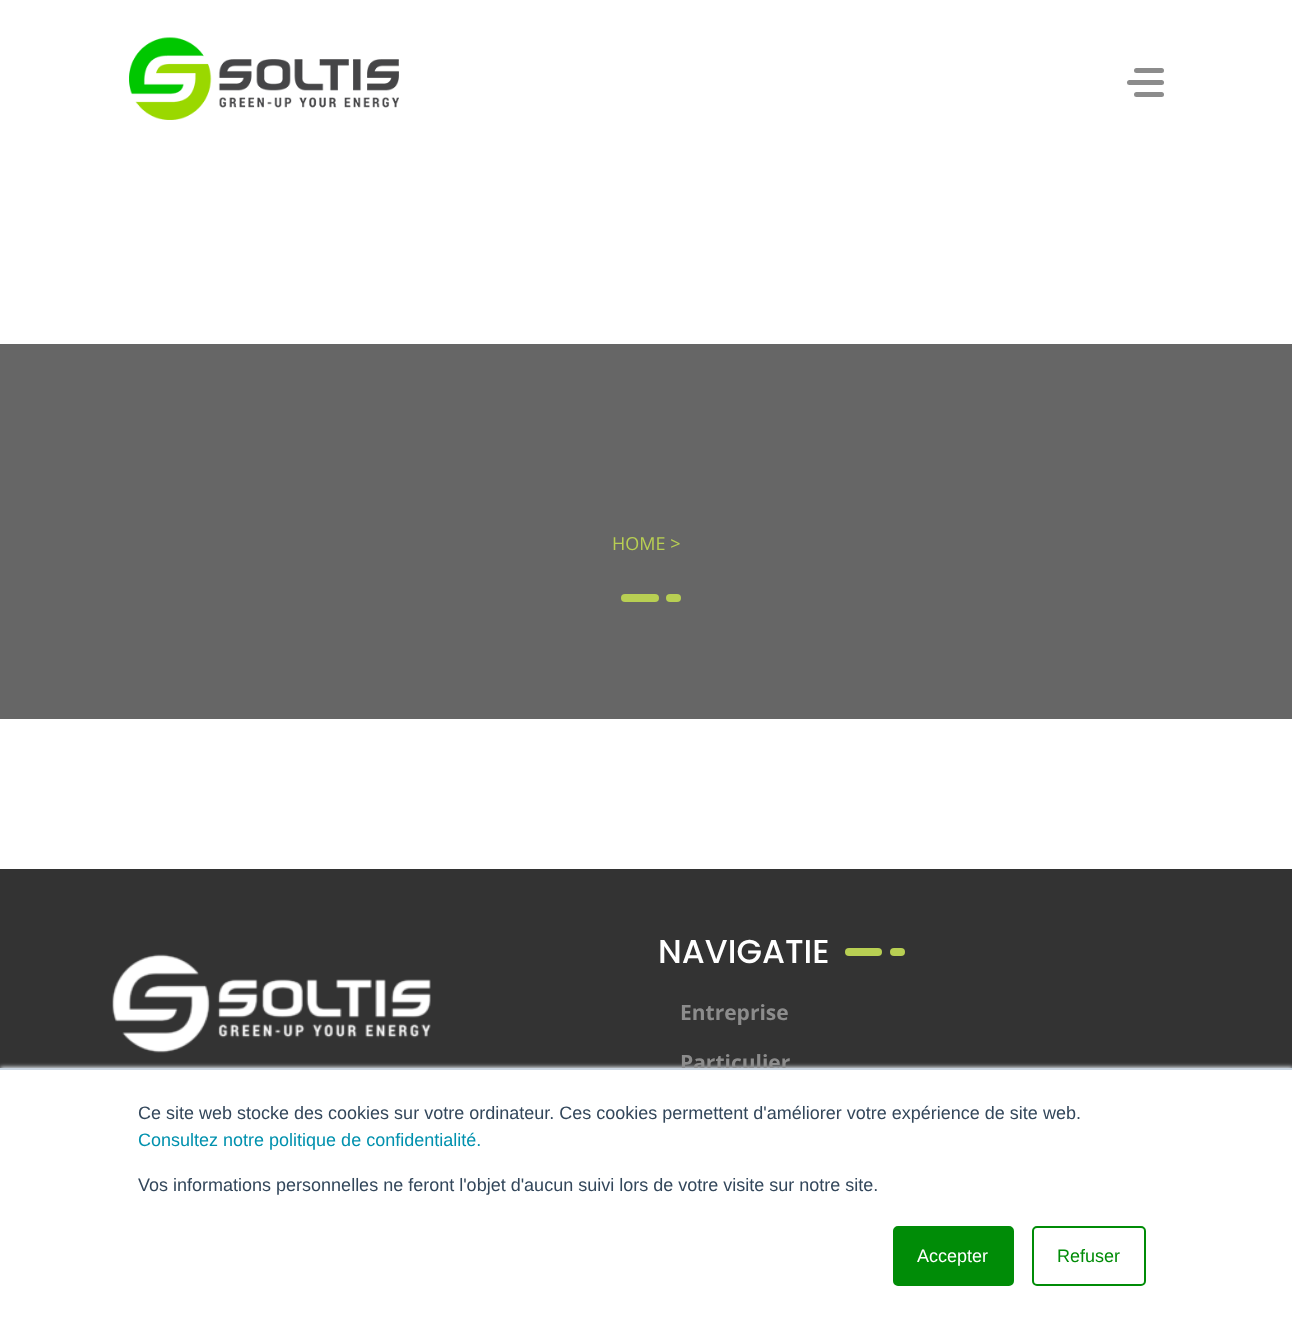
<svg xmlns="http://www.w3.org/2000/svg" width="1292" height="1324">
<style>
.a{font:18px Open Sans;fill:#b8cf53}
.b{font:500 33px Poppins;fill:#fff}
.c{font:bold 21px Open Sans;fill:#8c8c8c}
.d{font:18px Liberation Sans;fill:#33475b}
.e{font:18px Liberation Sans;fill:#0091ae}
.f{font:18px Liberation Sans;fill:#fff}
.g{font:18px Liberation Sans;fill:#008c07}
</style>
<rect width="100%" height="100%" fill="#fff"/>
<image href="1.png" x="129" y="37" width="270" height="83"/>
<rect fill="#8c8c8c" x="1134" y="68" width="30" height="5" rx="2.5"/>
<rect fill="#8c8c8c" x="1127" y="80" width="37" height="5" rx="2.5"/>
<rect fill="#8c8c8c" x="1134" y="92" width="30" height="5" rx="2.5"/>
<path fill="#666" d="M0 344h1292v375H0z"/>
<rect fill="#b8cf53" x="621" y="594" width="38" height="8" rx="4"/>
<rect fill="#b8cf53" x="666" y="594" width="15" height="8" rx="4"/>
<path fill="#333" d="M0 869h1292v199H0z"/>
<image href="2.png" x="112" y="954" width="319" height="99"/>
<rect fill="#b8cf53" x="845" y="948" width="37" height="8" rx="4"/>
<rect fill="#b8cf53" x="890" y="948" width="15" height="8" rx="4"/>
<path fill="#eaf0f6" filter="blur(2px)" d="M0 1067h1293v256H0z"/>
<text class="a" x="612" y="550">HOME &gt;</text>
<text class="b" x="658" y="963">NAVIGATIE</text>
<text class="c" x="680" y="1020">Entreprise</text>
<text class="c" x="680" y="1070">Particulier</text>
<path fill="#fff" d="M0 1070h1292v254H0z"/>
<path fill="#cbd6e2" d="M0 1068h1292v2H0z"/>
<text class="d" x="138" y="1119">Ce site web stocke des cookies sur votre ordinateur. Ces cookies permettent d'améliorer votre expérience de site web.</text>
<text class="e" x="138" y="1146">Consultez notre politique de confidentialité.</text>
<text class="d" x="138" y="1191">Vos informations personnelles ne feront l'objet d'aucun suivi lors de votre visite sur notre site.</text>
<rect fill="#008c07" stroke="#008c07" stroke-width="2" x="894" y="1227" width="119" height="58" rx="4"/>
<text class="f" x="917" y="1262">Accepter</text>
<rect fill="none" stroke="#008c07" stroke-width="2" x="1033" y="1227" width="112" height="58" rx="4"/>
<text class="g" x="1057" y="1262">Refuser</text>
</svg>
